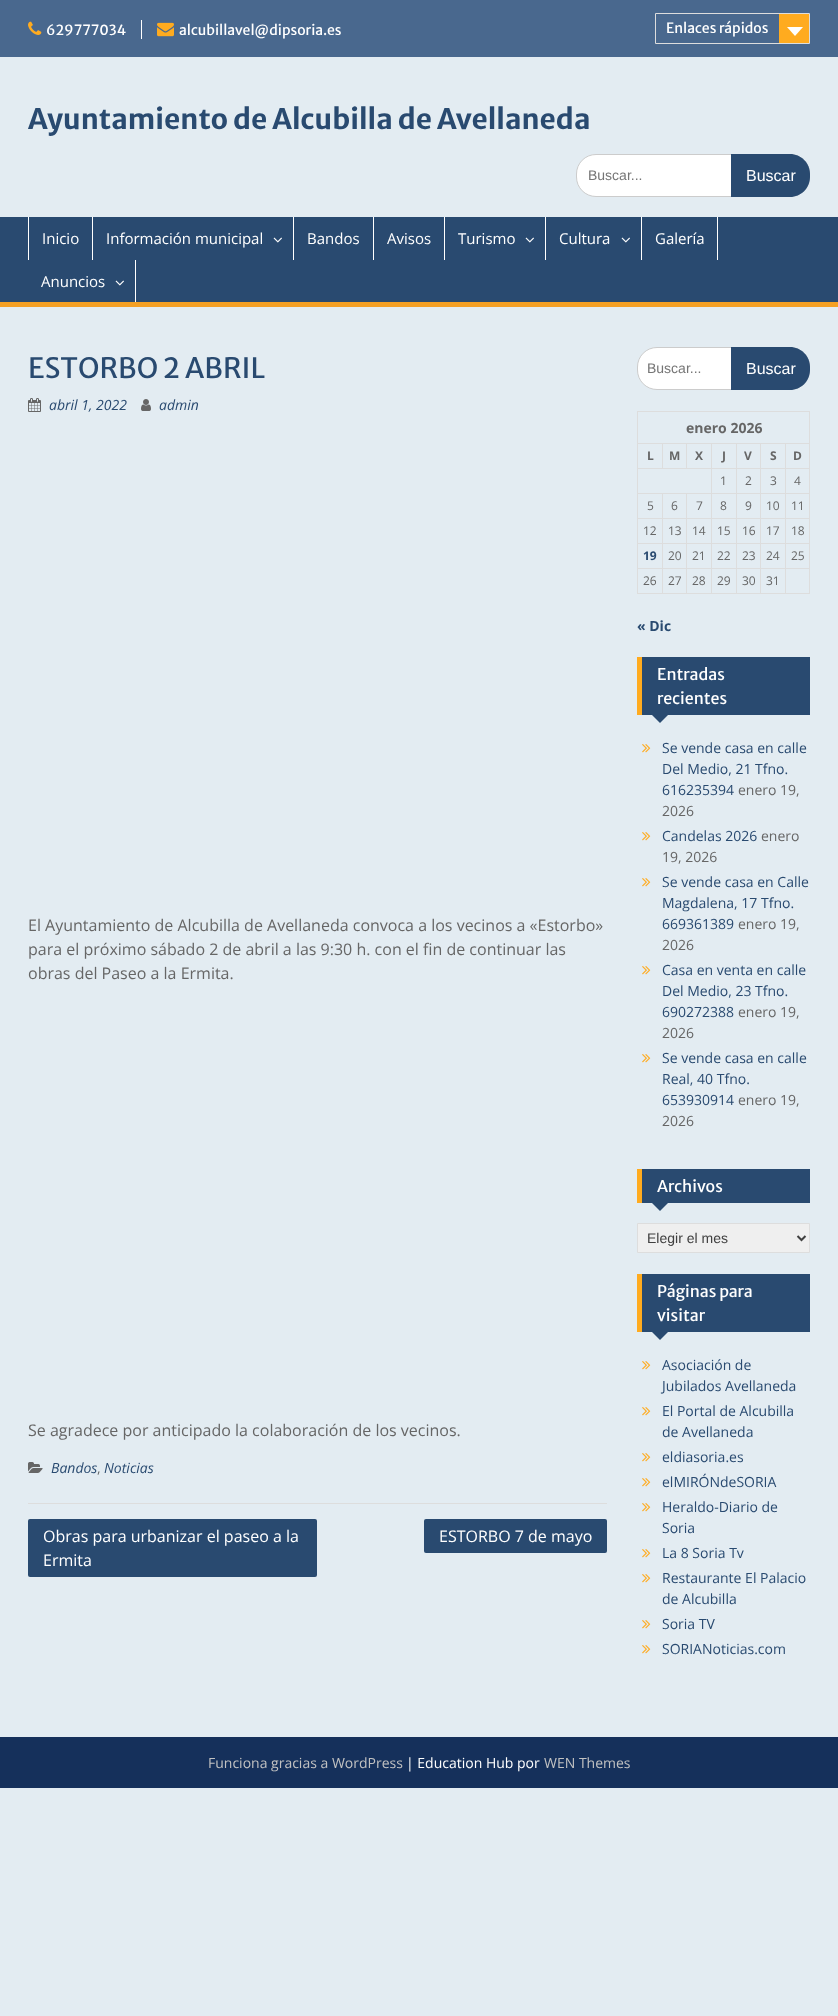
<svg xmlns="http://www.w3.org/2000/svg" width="838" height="2016">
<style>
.a{font:14px Merriweather Sans;fill:#fff}
.b{font:bold 28px Merriweather Sans;fill:#294a70}
.c{font:14px Liberation Sans;fill:#757575}
.d{font:16px Liberation Sans;fill:#fff}
.e{font:15px Open Sans;fill:#fff}
.f{font:28px Merriweather Sans;fill:#294a70}
.g{font:italic 14px Open Sans;fill:#294a70}
.h{font:16px Open Sans;fill:#666}
.i{font:14px Open Sans;fill:#666}
.j{font:16px Open Sans;fill:#fff}
.k{font:bold 14px Open Sans;fill:#666}
.l{font:bold 12px Open Sans;fill:#666}
.m{font:12px Open Sans;fill:#666}
.n{font:bold 12px Open Sans;fill:#294a70}
.o{font:bold 14px Open Sans;fill:#294a70}
.p{font:16px Merriweather Sans;fill:#fff}
.q{font:14px Open Sans;fill:#294a70}
.r{font:14px Liberation Sans;fill:#404040}
.s{font:14px Open Sans;fill:#c2c2c2}
.t{font:14px Open Sans;fill:#fff}
</style>
<rect width="100%" height="100%" fill="#e3ecf2"/>
<path fill="#49688e" d="M0 0h838v57H0z"/>
<image href="1.png" x="28" y="21" width="14" height="14"/>
<path fill="#fff" d="M141 20h1v19H141z"/>
<image href="2.png" x="157" y="22" width="17" height="15"/>
<path fill="none" stroke="#ddd" d="M655.5 13.5h154v30H655.5z"/>
<path fill="#ffab1f" d="M779 14h30v29H779z"/>
<path fill="#fff" d="M787 27h16l-8 9z"/>
<rect fill="#fff" stroke="#ccc" x="576.5" y="154.5" width="233" height="42" rx="19.5"/>
<path fill="#294a70" d="M731 154h59c11 0 20 9 20 20v3c0 11-9 20-20 20h-59z"/>
<path fill="#294a70" d="M0 217h838v85H0z"/>
<path fill="#f4a024" d="M0 302h838v5H0z"/>
<path fill="#fff" d="M92 217h1v43H92z"/>
<path fill="#fff" d="M28 217h1v43H28z"/>
<path fill="#fff" d="M293 217h1v43H293z"/>
<image href="3.png" x="273" y="237" width="9" height="6"/>
<path fill="#fff" d="M373 217h1v43H373z"/>
<path fill="#fff" d="M444 217h1v43H444z"/>
<path fill="#fff" d="M545 217h1v43H545z"/>
<image href="3.png" x="525" y="237" width="9" height="6"/>
<path fill="#fff" d="M641 217h1v43H641z"/>
<image href="3.png" x="621" y="237" width="9" height="6"/>
<path fill="#fff" d="M717 217h1v43H717z"/>
<path fill="#fff" d="M135 260h1v42H135z"/>
<image href="3.png" x="115" y="280" width="9" height="6"/>
<path fill="#ddd" d="M28 1503h579v1H28z"/>
<image href="4.png" x="28" y="398" width="13" height="14"/>
<image href="5.png" x="141" y="399" width="10" height="12"/>
<image href="6.png" x="28" y="1462" width="15" height="11"/>
<rect fill="#294a70" x="28" y="1519" width="289" height="58" rx="2"/>
<rect fill="#294a70" x="424" y="1519" width="183" height="34" rx="2"/>
<rect fill="#fff" stroke="#ccc" x="637.5" y="347.5" width="172" height="42" rx="19.5"/>
<path fill="#294a70" d="M731 347h59c11 0 20 9 20 20v3c0 11-9 20-20 20h-59z"/>
<path fill="#ddd" d="M637 411h173v1H637z"/>
<path fill="#ddd" d="M809 411h1v32H809z"/>
<path fill="#ddd" d="M637 411h1v32H637z"/>
<path fill="#ddd" d="M785 443h25v1H785z"/>
<path fill="#ddd" d="M785 468h25v1H785z"/>
<path fill="#ddd" d="M785 493h25v1H785z"/>
<path fill="#ddd" d="M785 518h25v1H785z"/>
<path fill="#ddd" d="M785 543h25v1H785z"/>
<path fill="#ddd" d="M785 568h25v1H785z"/>
<path fill="#ddd" d="M809 568h1v26H809z"/>
<path fill="#ddd" d="M785 593h25v1H785z"/>
<path fill="#ddd" d="M785 568h1v26H785z"/>
<path fill="#ddd" d="M760 568h26v1H760z"/>
<path fill="#ddd" d="M785 543h1v26H785z"/>
<path fill="#ddd" d="M760 543h26v1H760z"/>
<path fill="#ddd" d="M785 518h1v26H785z"/>
<path fill="#ddd" d="M760 518h26v1H760z"/>
<path fill="#ddd" d="M785 493h1v26H785z"/>
<path fill="#ddd" d="M760 493h26v1H760z"/>
<path fill="#ddd" d="M785 468h1v26H785z"/>
<path fill="#ddd" d="M760 468h26v1H760z"/>
<path fill="#ddd" d="M785 443h1v26H785z"/>
<path fill="#ddd" d="M760 443h26v1H760z"/>
<path fill="#ddd" d="M760 593h26v1H760z"/>
<path fill="#ddd" d="M760 568h1v26H760z"/>
<path fill="#ddd" d="M736 568h25v1H736z"/>
<path fill="#ddd" d="M760 543h1v26H760z"/>
<path fill="#ddd" d="M736 543h25v1H736z"/>
<path fill="#ddd" d="M760 518h1v26H760z"/>
<path fill="#ddd" d="M736 518h25v1H736z"/>
<path fill="#ddd" d="M760 493h1v26H760z"/>
<path fill="#ddd" d="M736 493h25v1H736z"/>
<path fill="#ddd" d="M760 468h1v26H760z"/>
<path fill="#ddd" d="M736 468h25v1H736z"/>
<path fill="#ddd" d="M760 443h1v26H760z"/>
<path fill="#ddd" d="M736 443h25v1H736z"/>
<path fill="#ddd" d="M736 593h25v1H736z"/>
<path fill="#ddd" d="M736 568h1v26H736z"/>
<path fill="#ddd" d="M711 568h26v1H711z"/>
<path fill="#ddd" d="M736 543h1v26H736z"/>
<path fill="#ddd" d="M711 543h26v1H711z"/>
<path fill="#ddd" d="M736 518h1v26H736z"/>
<path fill="#ddd" d="M711 518h26v1H711z"/>
<path fill="#ddd" d="M736 493h1v26H736z"/>
<path fill="#ddd" d="M711 493h26v1H711z"/>
<path fill="#ddd" d="M736 468h1v26H736z"/>
<path fill="#ddd" d="M711 468h26v1H711z"/>
<path fill="#ddd" d="M736 443h1v26H736z"/>
<path fill="#ddd" d="M711 443h26v1H711z"/>
<path fill="#ddd" d="M711 593h26v1H711z"/>
<path fill="#ddd" d="M711 568h1v26H711z"/>
<path fill="#ddd" d="M686 568h26v1H686z"/>
<path fill="#ddd" d="M711 543h1v26H711z"/>
<path fill="#ddd" d="M686 543h26v1H686z"/>
<path fill="#ddd" d="M711 518h1v26H711z"/>
<path fill="#ddd" d="M686 518h26v1H686z"/>
<path fill="#ddd" d="M711 493h1v26H711z"/>
<path fill="#ddd" d="M686 493h26v1H686z"/>
<path fill="#ddd" d="M711 468h1v26H711z"/>
<path fill="#ddd" d="M637 468h75v1H637z"/>
<path fill="#ddd" d="M711 443h1v26H711z"/>
<path fill="#ddd" d="M686 443h26v1H686z"/>
<path fill="#ddd" d="M686 443h1v26H686z"/>
<path fill="#ddd" d="M662 443h25v1H662z"/>
<path fill="#ddd" d="M662 443h1v26H662z"/>
<path fill="#ddd" d="M637 443h26v1H637z"/>
<path fill="#ddd" d="M686 593h26v1H686z"/>
<path fill="#ddd" d="M686 568h1v26H686z"/>
<path fill="#ddd" d="M662 568h25v1H662z"/>
<path fill="#ddd" d="M686 543h1v26H686z"/>
<path fill="#ddd" d="M662 543h25v1H662z"/>
<path fill="#ddd" d="M686 518h1v26H686z"/>
<path fill="#ddd" d="M662 518h25v1H662z"/>
<path fill="#ddd" d="M686 493h1v26H686z"/>
<path fill="#ddd" d="M662 493h25v1H662z"/>
<path fill="#ddd" d="M662 593h25v1H662z"/>
<path fill="#ddd" d="M662 568h1v26H662z"/>
<path fill="#ddd" d="M637 568h26v1H637z"/>
<path fill="#ddd" d="M662 543h1v26H662z"/>
<path fill="#ddd" d="M637 543h26v1H637z"/>
<path fill="#ddd" d="M662 518h1v26H662z"/>
<path fill="#ddd" d="M637 518h26v1H637z"/>
<path fill="#ddd" d="M662 493h1v26H662z"/>
<path fill="#ddd" d="M637 493h26v1H637z"/>
<path fill="#ddd" d="M637 593h26v1H637z"/>
<path fill="#ddd" d="M637 568h1v26H637z"/>
<path fill="#ddd" d="M637 543h1v26H637z"/>
<path fill="#ddd" d="M637 518h1v26H637z"/>
<path fill="#ddd" d="M637 493h1v26H637z"/>
<path fill="#ddd" d="M637 468h1v26H637z"/>
<path fill="#ddd" d="M637 443h1v26H637z"/>
<path fill="#ddd" d="M809 543h1v26H809z"/>
<path fill="#ddd" d="M809 518h1v26H809z"/>
<path fill="#ddd" d="M809 493h1v26H809z"/>
<path fill="#ddd" d="M809 468h1v26H809z"/>
<path fill="#ddd" d="M809 443h1v26H809z"/>
<path fill="#294a70" d="M642 657h168v58H642z"/>
<path fill="#ffab1f" d="M637 657h5v58H637z"/>
<path fill="#294a70" d="M651 714h18l-9 9z"/>
<image href="7.png" x="642" y="744" width="9" height="9"/>
<image href="7.png" x="642" y="832" width="9" height="9"/>
<image href="7.png" x="642" y="878" width="9" height="9"/>
<image href="7.png" x="642" y="966" width="9" height="9"/>
<image href="7.png" x="642" y="1054" width="9" height="9"/>
<path fill="#294a70" d="M642 1169h168v34H642z"/>
<path fill="#ffab1f" d="M637 1169h5v34H637z"/>
<path fill="#294a70" d="M651 1202h18l-9 9z"/>
<path fill="#efefef" stroke="#ddd" d="M637.5 1223.5h172v29H637.5z"/>
<path fill="none" stroke="#404040" stroke-width="2" d="M797.5 1236l4 4l4-4"/>
<path fill="#294a70" d="M642 1274h168v58H642z"/>
<path fill="#ffab1f" d="M637 1274h5v58H637z"/>
<path fill="#294a70" d="M651 1331h18l-9 9z"/>
<image href="7.png" x="642" y="1361" width="9" height="9"/>
<image href="7.png" x="642" y="1407" width="9" height="9"/>
<image href="7.png" x="642" y="1453" width="9" height="9"/>
<image href="7.png" x="642" y="1478" width="9" height="9"/>
<image href="7.png" x="642" y="1503" width="9" height="9"/>
<image href="7.png" x="642" y="1549" width="9" height="9"/>
<image href="7.png" x="642" y="1574" width="9" height="9"/>
<image href="7.png" x="642" y="1620" width="9" height="9"/>
<image href="7.png" x="642" y="1645" width="9" height="9"/>
<path fill="#15305b" d="M0 1737h838v51H0z"/>
<text class="a" x="46" y="35">629777034</text>
<text class="a" x="179" y="35">alcubillavel@dipsoria.es</text>
<text class="a" x="666" y="33">Enlaces rápidos</text>
<text class="b" x="28" y="129">Ayuntamiento de Alcubilla de Avellaneda</text>
<text class="c" x="588" y="180">Buscar...</text>
<text class="d" x="746" y="181">Buscar</text>
<text class="e" x="42" y="244">Inicio</text>
<text class="e" x="106" y="244">Información municipal</text>
<text class="e" x="307" y="244">Bandos</text>
<text class="e" x="387" y="244">Avisos</text>
<text class="e" x="458" y="244">Turismo</text>
<text class="e" x="559" y="244">Cultura</text>
<text class="e" x="655" y="244">Galería</text>
<text class="e" x="41" y="287">Anuncios</text>
<text class="f" x="28" y="378">ESTORBO 2 ABRIL</text>
<text class="g" x="49" y="410">abril 1, 2022</text>
<text class="g" x="159" y="410">admin</text>
<text class="h" x="28" y="931">El Ayuntamiento de Alcubilla de Avellaneda convoca a los vecinos a «Estorbo»</text>
<text class="h" x="28" y="955">para el próximo sábado 2 de abril a las 9:30 h. con el fin de continuar las</text>
<text class="h" x="28" y="979">obras del Paseo a la Ermita.</text>
<text class="h" x="28" y="1436">Se agradece por anticipado la colaboración de los vecinos.</text>
<text class="g" x="51" y="1473">Bandos</text>
<text class="i" x="97" y="1473">,</text>
<text class="g" x="104" y="1473">Noticias</text>
<text class="j" x="43" y="1542">Obras para urbanizar el paseo a la</text>
<text class="j" x="43" y="1566">Ermita</text>
<text class="j" x="439" y="1542">ESTORBO 7 de mayo</text>
<text class="c" x="647" y="373">Buscar...</text>
<text class="d" x="746" y="374">Buscar</text>
<text class="k" x="686" y="433">enero 2026</text>
<text class="l" x="647" y="460">L</text>
<text class="l" x="669" y="460">M</text>
<text class="l" x="695" y="460">X</text>
<text class="l" x="722" y="460">J</text>
<text class="l" x="744" y="460">V</text>
<text class="l" x="770" y="460">S</text>
<text class="l" x="793" y="460">D</text>
<text class="m" x="720" y="485">1</text>
<text class="m" x="745" y="485">2</text>
<text class="m" x="770" y="485">3</text>
<text class="m" x="794" y="485">4</text>
<text class="m" x="647" y="510">5</text>
<text class="m" x="671" y="510">6</text>
<text class="m" x="696" y="510">7</text>
<text class="m" x="720" y="510">8</text>
<text class="m" x="745" y="510">9</text>
<text class="m" x="766" y="510">10</text>
<text class="m" x="791" y="510">11</text>
<text class="m" x="643" y="535">12</text>
<text class="m" x="668" y="535">13</text>
<text class="m" x="692" y="535">14</text>
<text class="m" x="717" y="535">15</text>
<text class="m" x="742" y="535">16</text>
<text class="m" x="766" y="535">17</text>
<text class="m" x="791" y="535">18</text>
<text class="n" x="643" y="560">19</text>
<text class="m" x="668" y="560">20</text>
<text class="m" x="692" y="560">21</text>
<text class="m" x="717" y="560">22</text>
<text class="m" x="742" y="560">23</text>
<text class="m" x="766" y="560">24</text>
<text class="m" x="791" y="560">25</text>
<text class="m" x="643" y="585">26</text>
<text class="m" x="668" y="585">27</text>
<text class="m" x="692" y="585">28</text>
<text class="m" x="717" y="585">29</text>
<text class="m" x="742" y="585">30</text>
<text class="m" x="766" y="585">31</text>
<text class="o" x="637" y="631">« Dic</text>
<text class="p" x="657" y="680">Entradas</text>
<text class="p" x="657" y="704">recientes</text>
<text class="q" x="662" y="753">Se vende casa en calle</text>
<text class="q" x="662" y="774">Del Medio, 21 Tfno.</text>
<text class="q" x="662" y="795">616235394</text>
<text class="i" x="738" y="795">enero 19,</text>
<text class="i" x="662" y="816">2026</text>
<text class="q" x="662" y="841">Candelas 2026</text>
<text class="i" x="761" y="841">enero</text>
<text class="i" x="662" y="862">19, 2026</text>
<text class="q" x="662" y="887">Se vende casa en Calle</text>
<text class="q" x="662" y="908">Magdalena, 17 Tfno.</text>
<text class="q" x="662" y="929">669361389</text>
<text class="i" x="738" y="929">enero 19,</text>
<text class="i" x="662" y="950">2026</text>
<text class="q" x="662" y="975">Casa en venta en calle</text>
<text class="q" x="662" y="996">Del Medio, 23 Tfno.</text>
<text class="q" x="662" y="1017">690272388</text>
<text class="i" x="738" y="1017">enero 19,</text>
<text class="i" x="662" y="1038">2026</text>
<text class="q" x="662" y="1063">Se vende casa en calle</text>
<text class="q" x="662" y="1084">Real, 40 Tfno.</text>
<text class="q" x="662" y="1105">653930914</text>
<text class="i" x="738" y="1105">enero 19,</text>
<text class="i" x="662" y="1126">2026</text>
<text class="p" x="657" y="1192">Archivos</text>
<text class="r" x="647" y="1243">Elegir el mes</text>
<text class="p" x="657" y="1297">Páginas para</text>
<text class="p" x="657" y="1321">visitar</text>
<text class="q" x="662" y="1370">Asociación de</text>
<text class="q" x="662" y="1391">Jubilados Avellaneda</text>
<text class="q" x="662" y="1416">El Portal de Alcubilla</text>
<text class="q" x="662" y="1437">de Avellaneda</text>
<text class="q" x="662" y="1462">eldiasoria.es</text>
<text class="q" x="662" y="1487">elMIRÓNdeSORIA</text>
<text class="q" x="662" y="1512">Heraldo-Diario de</text>
<text class="q" x="662" y="1533">Soria</text>
<text class="q" x="662" y="1558">La 8 Soria Tv</text>
<text class="q" x="662" y="1583">Restaurante El Palacio</text>
<text class="q" x="662" y="1604">de Alcubilla</text>
<text class="q" x="662" y="1629">Soria TV</text>
<text class="q" x="662" y="1654">SORIANoticias.com</text>
<text class="s" x="208" y="1768">Funciona gracias a WordPress</text>
<text class="t" x="406" y="1768">| Education Hub por</text>
<text class="s" x="544" y="1768">WEN Themes</text>
</svg>
